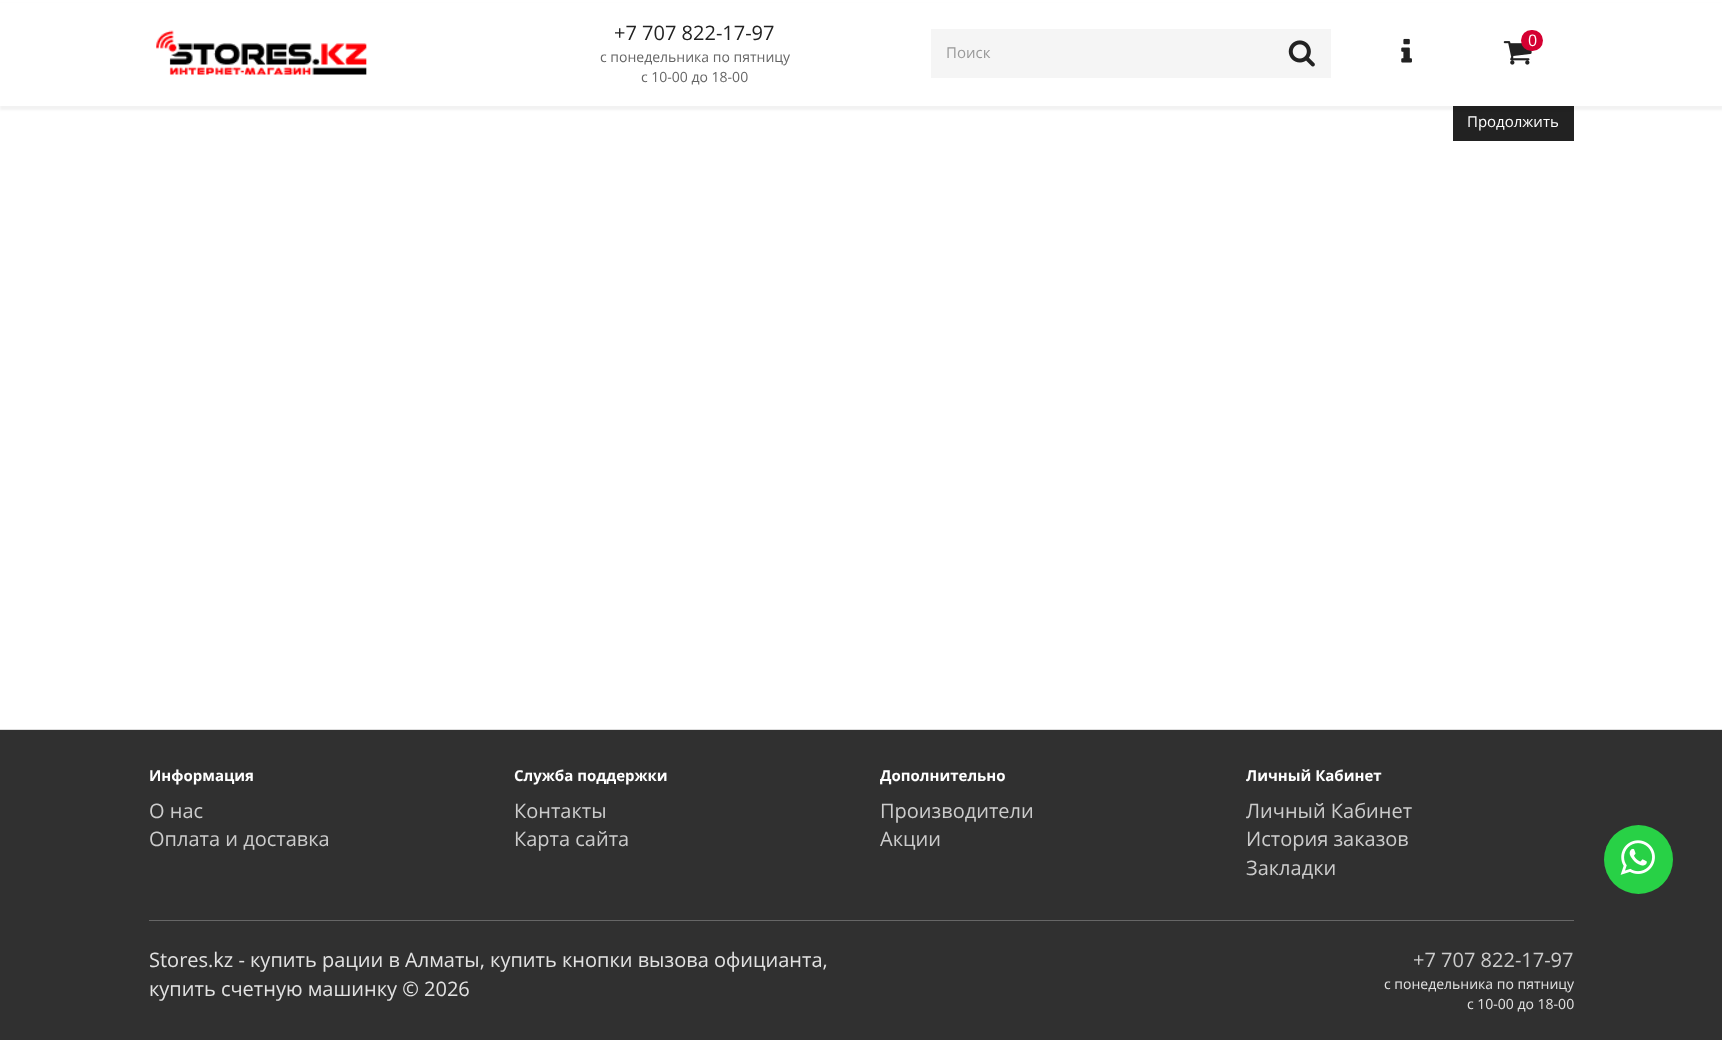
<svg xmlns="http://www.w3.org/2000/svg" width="1722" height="1040">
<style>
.a{font:20px Open Sans;fill:#222}
.b{font:14px Open Sans;fill:#666}
.c{font:15px Open Sans;fill:#999}
.d{font:16px Open Sans;fill:#fff}
.e{font:15px Open Sans;fill:#fff}
.f{font:bold 15px Open Sans;fill:#fff}
.g{font:20px Open Sans;fill:#ccc}
.h{font:20px Open Sans;fill:#e2e2e2}
.i{font:14px Open Sans;fill:#e2e2e2}
</style>
<rect width="100%" height="100%" fill="#fff"/>
<path fill="#222" d="M1453 106h121v35H1453z"/>
<path fill="#0000000d" filter="blur(1px)" d="M0 4h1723v106H0z"/>
<path fill="#fff" d="M0 3h1722v103H0z"/>
<image href="1.png" x="156" y="30" width="211" height="45"/>
<path fill="#f5f5f5" d="M931 29h400v49H931z"/>
<image href="2.png" x="1288" y="40" width="27" height="27"/>
<image href="3.png" x="1401" y="38" width="11" height="25"/>
<image href="4.png" x="1503" y="41" width="29" height="24"/>
<rect fill="#d50032" x="1521" y="30" width="22" height="21" rx="10.5"/>
<path fill="#303030" d="M0 730h1722v310H0z"/>
<path fill="#ddd" d="M0 729h1722v1H0z"/>
<path fill="#666" d="M149 920h1425v1H149z"/>
<circle fill="#28d146" cx="1638.5" cy="859.5" r="34.5"/>
<image href="5.png" x="1620" y="840" width="35" height="35"/>
<text class="a" x="614" y="40">+7 707 822-17-97</text>
<text class="b" x="600" y="62">с понедельника по пятницу</text>
<text class="b" x="641" y="82">с 10-00 до 18-00</text>
<text class="c" x="946" y="58">Поиск</text>
<text class="d" x="1528" y="46">0</text>
<text class="e" x="1467" y="127">Продолжить</text>
<text class="f" x="149" y="781">Информация</text>
<text class="g" x="149" y="818">О нас</text>
<text class="g" x="149" y="846">Оплата и доставка</text>
<text class="f" x="514" y="781">Служба поддержки</text>
<text class="g" x="514" y="818">Контакты</text>
<text class="g" x="514" y="846">Карта сайта</text>
<text class="f" x="880" y="781">Дополнительно</text>
<text class="g" x="880" y="818">Производители</text>
<text class="g" x="880" y="846">Акции</text>
<text class="f" x="1246" y="781">Личный Кабинет</text>
<text class="g" x="1246" y="818">Личный Кабинет</text>
<text class="g" x="1246" y="846">История заказов</text>
<text class="g" x="1246" y="875">Закладки</text>
<text class="h" x="149" y="967">Stores.kz - купить рации в Алматы, купить кнопки вызова официанта,</text>
<text class="h" x="149" y="996">купить счетную машинку © 2026</text>
<text class="g" x="1413" y="967">+7 707 822-17-97</text>
<text class="i" x="1384" y="989">с понедельника по пятницу</text>
<text class="i" x="1467" y="1009">с 10-00 до 18-00</text>
</svg>
